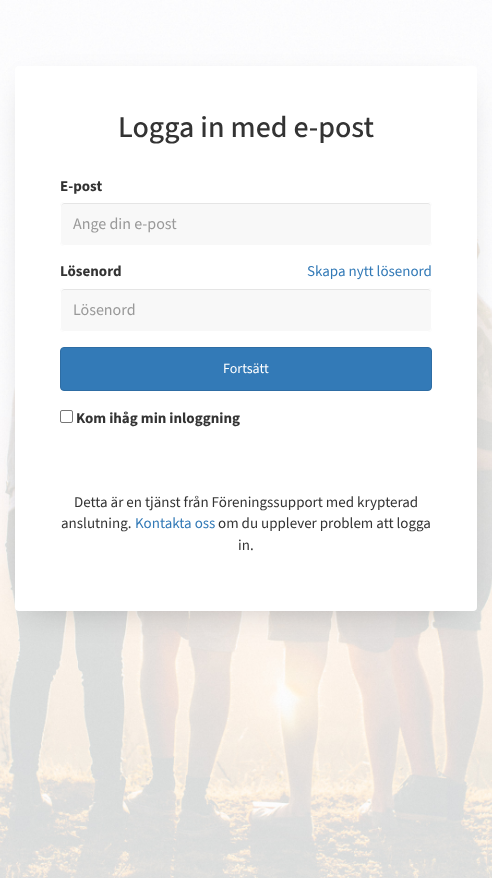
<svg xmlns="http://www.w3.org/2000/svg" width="492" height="878">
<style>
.a{font:500 30px 'Source Sans 3';fill:#333}
.b{font:bold 15px 'Source Sans 3';fill:#333}
.c{font:16px 'Source Sans 3';fill:#999}
.d{font:15px 'Source Sans 3';fill:#337ab7}
.e{font:14px 'Source Sans 3';fill:#fff}
.f{font:15px 'Source Sans 3';fill:#333}
</style>
<rect width="100%" height="100%" fill="#fff"/>
<image href="1.png" x="0" y="0" width="492" height="878"/>
<path fill="#0000003d" filter="blur(17px)" d="M30 91h432v515H30z"/>
<rect fill="#fff" x="15" y="66" width="462" height="545" rx="4"/>
<rect fill="#f8f8f8" x="60" y="202" width="372" height="44" rx="4"/>
<path fill="#e5e5e5" d="M64 204h364c2 0 3 1 3 3c0-2-1-4-3-4h-364l-2 1l-1 3c0-2 1-3 3-3z"/>
<rect fill="none" stroke="#fff" x="60.5" y="202.5" width="371" height="43" rx="3.5"/>
<rect fill="#f8f8f8" x="60" y="288" width="372" height="44" rx="4"/>
<path fill="#e5e5e5" d="M64 290h364c2 0 3 1 3 3c0-2-1-4-3-4h-364l-2 1l-1 3c0-2 1-3 3-3z"/>
<rect fill="none" stroke="#fff" x="60.5" y="288.5" width="371" height="43" rx="3.5"/>
<rect fill="#337ab7" stroke="#2e6da4" x="60.5" y="347.5" width="371" height="43" rx="3.5"/>
<rect fill="none" stroke="#767676" x="60.5" y="410.5" width="12" height="12" rx="1.5"/>
<text class="a" x="118" y="137">Logga in med e-post</text>
<text class="b" x="60" y="191">E-post</text>
<text class="c" x="73" y="229">Ange din e-post</text>
<text class="b" x="60" y="276">Lösenord</text>
<text class="d" x="307" y="276">Skapa nytt lösenord</text>
<text class="c" x="73" y="315">Lösenord</text>
<text class="e" x="223" y="373">Fortsätt</text>
<text class="b" x="76" y="423">Kom ihåg min inloggning</text>
<text class="f" x="74" y="507">Detta är en tjänst från Föreningssupport med krypterad</text>
<text class="f" x="61" y="528">anslutning.</text>
<text class="d" x="135" y="528">Kontakta oss</text>
<text class="f" x="218" y="528">om du upplever problem att logga</text>
<text class="f" x="238" y="550">in.</text>
</svg>
